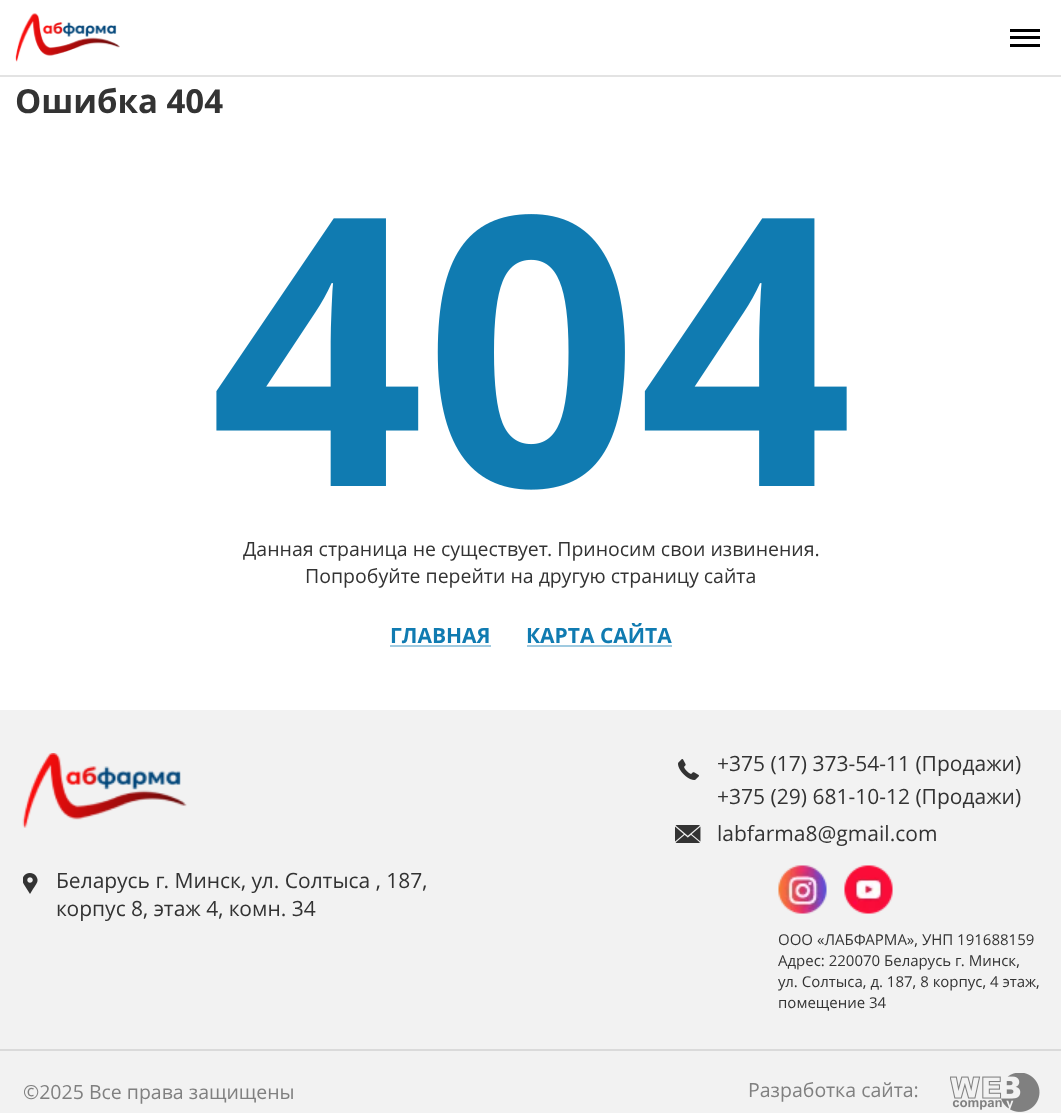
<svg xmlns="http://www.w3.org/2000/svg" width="1061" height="1113">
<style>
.a{font:bold 33px Open Sans;fill:#333}
.b{font:19.5px Open Sans;fill:#333}
.c{font:bold 21px Open Sans;fill:#107bb1}
.d{font:21px Open Sans;fill:#333}
.e{font:15px Open Sans;fill:#333}
.f{font:19.5px Open Sans;fill:#808080}
</style>
<rect width="100%" height="100%" fill="#fff"/>
<path fill="#e3e3e3" d="M0 75h1061v2H0z"/>
<image href="1.png" x="15" y="13" width="105" height="49"/>
<path fill="#000" d="M1010 36h30v3H1010z"/>
<path fill="#000" d="M1010 29h30v3H1010z"/>
<path fill="#000" d="M1010 44h30v3H1010z"/>
<image href="2.png" x="216" y="214" width="631" height="276"/>
<path fill="#9fcae0" d="M390 645h101v2H390z"/>
<path fill="#9fcae0" d="M527 645h145v2H527z"/>
<path fill="#f2f2f2" d="M0 710h1061v403H0z"/>
<image href="3.png" x="22" y="753" width="165" height="75"/>
<image href="4.png" x="678" y="759" width="21" height="21"/>
<image href="5.png" x="675" y="825" width="26" height="18"/>
<image href="6.png" x="23" y="873" width="15" height="21"/>
<image href="7.png" x="778" y="865" width="49" height="49"/>
<image href="8.png" x="844" y="865" width="49" height="49"/>
<path fill="#dadada" d="M0 1049h1061v2H0z"/>
<image href="9.png" x="950" y="1073" width="90" height="39"/>
<text class="a" x="15" y="113">Ошибка 404</text>
<text class="b" x="243" y="556">Данная страница не существует. Приносим свои извинения.</text>
<text class="b" x="305" y="583">Попробуйте перейти на другую страницу сайта</text>
<text class="c" x="390" y="643">ГЛАВНАЯ</text>
<text class="c" x="526" y="643">КАРТА САЙТА</text>
<text class="d" x="717" y="771">+375 (17) 373-54-11 (Продажи)</text>
<text class="d" x="717" y="804">+375 (29) 681-10-12 (Продажи)</text>
<text class="d" x="717" y="841">labfarma8@gmail.com</text>
<text class="d" x="56" y="888">Беларусь г. Минск, ул. Солтыса , 187,</text>
<text class="d" x="56" y="916">корпус 8, этаж 4, комн. 34</text>
<text class="e" x="778" y="945">ООО «ЛАБФАРМА», УНП 191688159</text>
<text class="e" x="778" y="966">Адрес: 220070 Беларусь г. Минск,</text>
<text class="e" x="778" y="987">ул. Солтыса, д. 187, 8 корпус, 4 этаж,</text>
<text class="e" x="778" y="1008">помещение 34</text>
<text class="f" x="23" y="1099">©2025 Все права защищены</text>
<text class="f" x="748" y="1097">Разработка сайта:</text>
</svg>
